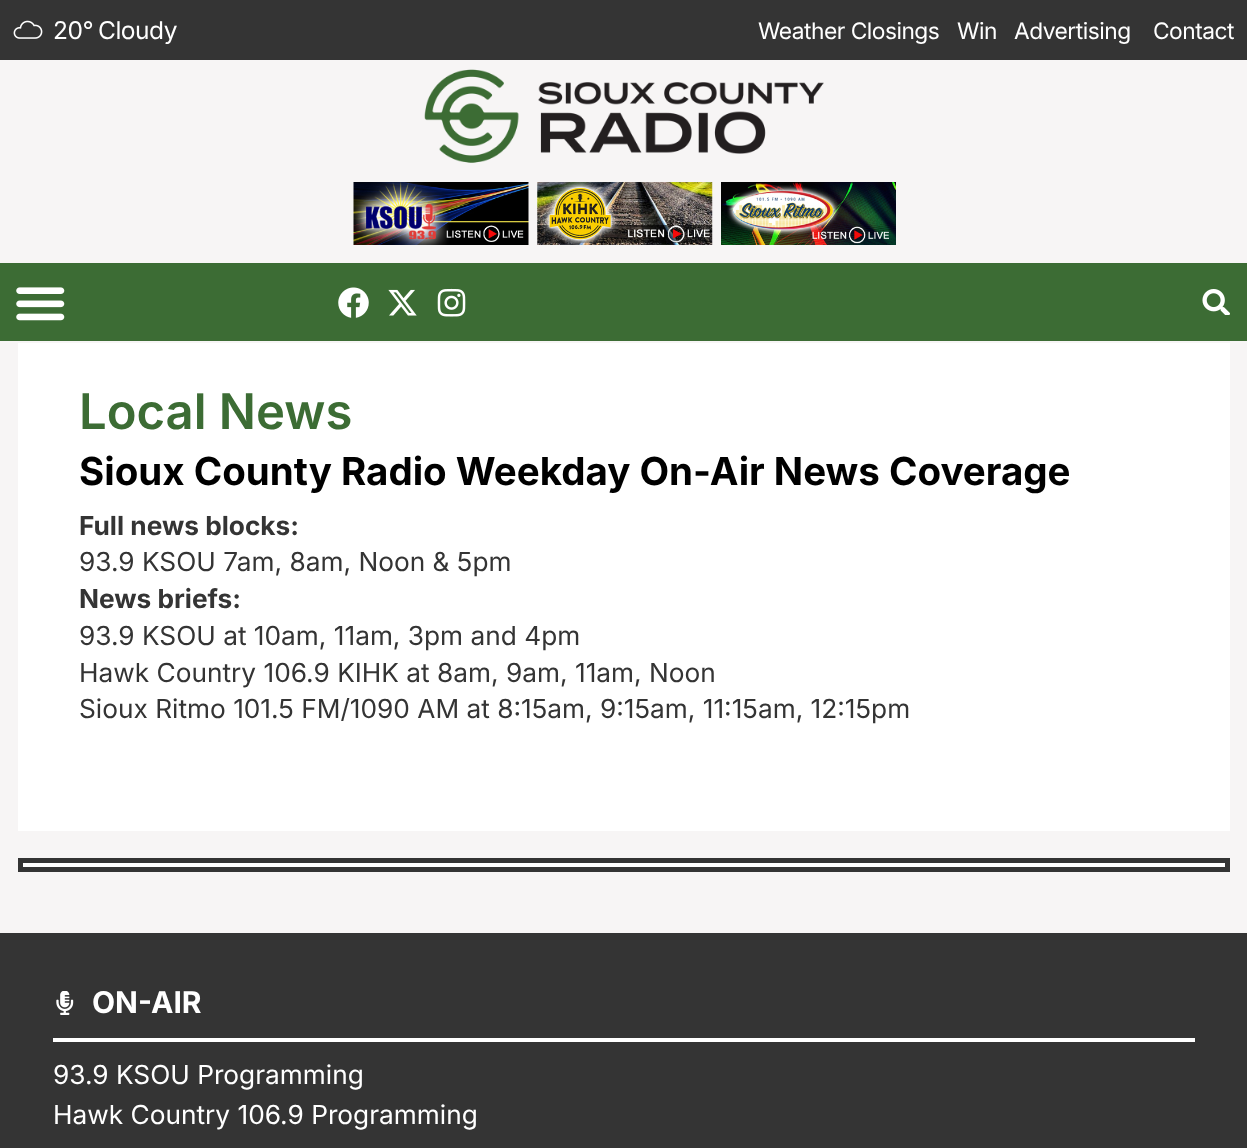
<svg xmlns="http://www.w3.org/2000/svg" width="1247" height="1148">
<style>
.a{font:24.5px Inter;letter-spacing:-0.5px;fill:#fff}
.b{font:22.75px Inter;letter-spacing:-0.5px;fill:#fff}
.c{font:600 49px Inter;fill:#3c6c34}
.d{font:bold 38.5px Inter;fill:#000}
.e{font:bold 26.25px Inter;fill:#343434}
.f{font:26.25px Inter;fill:#343434}
.g{font:bold 30px Inter;fill:#fff}
.h{font:26.25px Inter;fill:#fff}
</style>
<rect width="100%" height="100%" fill="#f7f5f5"/>
<path fill="#343434" d="M0 0h1247v60H0z"/>
<image href="1.png" x="13" y="20" width="30" height="19"/>
<image href="2.png" x="424" y="69" width="400" height="94"/>
<image href="3.png" x="353" y="182" width="176" height="63"/>
<image href="4.png" x="537" y="182" width="176" height="63"/>
<image href="5.png" x="721" y="182" width="175" height="63"/>
<path fill="#3c6c34" d="M0 263h1247v78H0z"/>
<image href="6.png" x="16" y="287" width="49" height="34"/>
<image href="7.png" x="338" y="287" width="31" height="31"/>
<image href="8.png" x="388" y="289" width="29" height="27"/>
<image href="9.png" x="437" y="288" width="29" height="29"/>
<image href="10.png" x="1202" y="289" width="28" height="26"/>
<path fill="#fff" d="M18 343h1212v488H18z"/>
<path fill="none" stroke="#343434" stroke-width="5" d="M20.5 860.5h1207v9H20.5z"/>
<path fill="#fff" d="M23 863h1202v4H23z"/>
<path fill="#343434" d="M0 933h1247v215H0z"/>
<image href="11.png" x="56" y="991" width="18" height="24"/>
<path fill="#fff" d="M53 1038h1142v4H53z"/>
<text class="a" x="53" y="39">20°</text>
<text class="a" x="98" y="39">Cloudy</text>
<text class="b" x="758" y="39">Weather Closings</text>
<text class="b" x="957" y="39">Win</text>
<text class="b" x="1014" y="39">Advertising</text>
<text class="b" x="1153" y="39">Contact</text>
<text class="c" x="79" y="429">Local News</text>
<text class="d" x="79" y="485">Sioux County Radio Weekday On-Air News Coverage</text>
<text class="e" x="79" y="535">Full news blocks:</text>
<text class="f" x="79" y="571">93.9 KSOU 7am, 8am, Noon &amp; 5pm</text>
<text class="e" x="79" y="608">News briefs:</text>
<text class="f" x="79" y="645">93.9 KSOU at 10am, 11am, 3pm and 4pm</text>
<text class="f" x="79" y="682">Hawk Country 106.9 KIHK at 8am, 9am, 11am, Noon</text>
<text class="f" x="79" y="718">Sioux Ritmo 101.5 FM/1090 AM at 8:15am, 9:15am, 11:15am, 12:15pm</text>
<text class="g" x="92" y="1013">ON-AIR</text>
<text class="h" x="53" y="1084">93.9 KSOU Programming</text>
<text class="h" x="53" y="1124">Hawk Country 106.9 Programming</text>
</svg>
